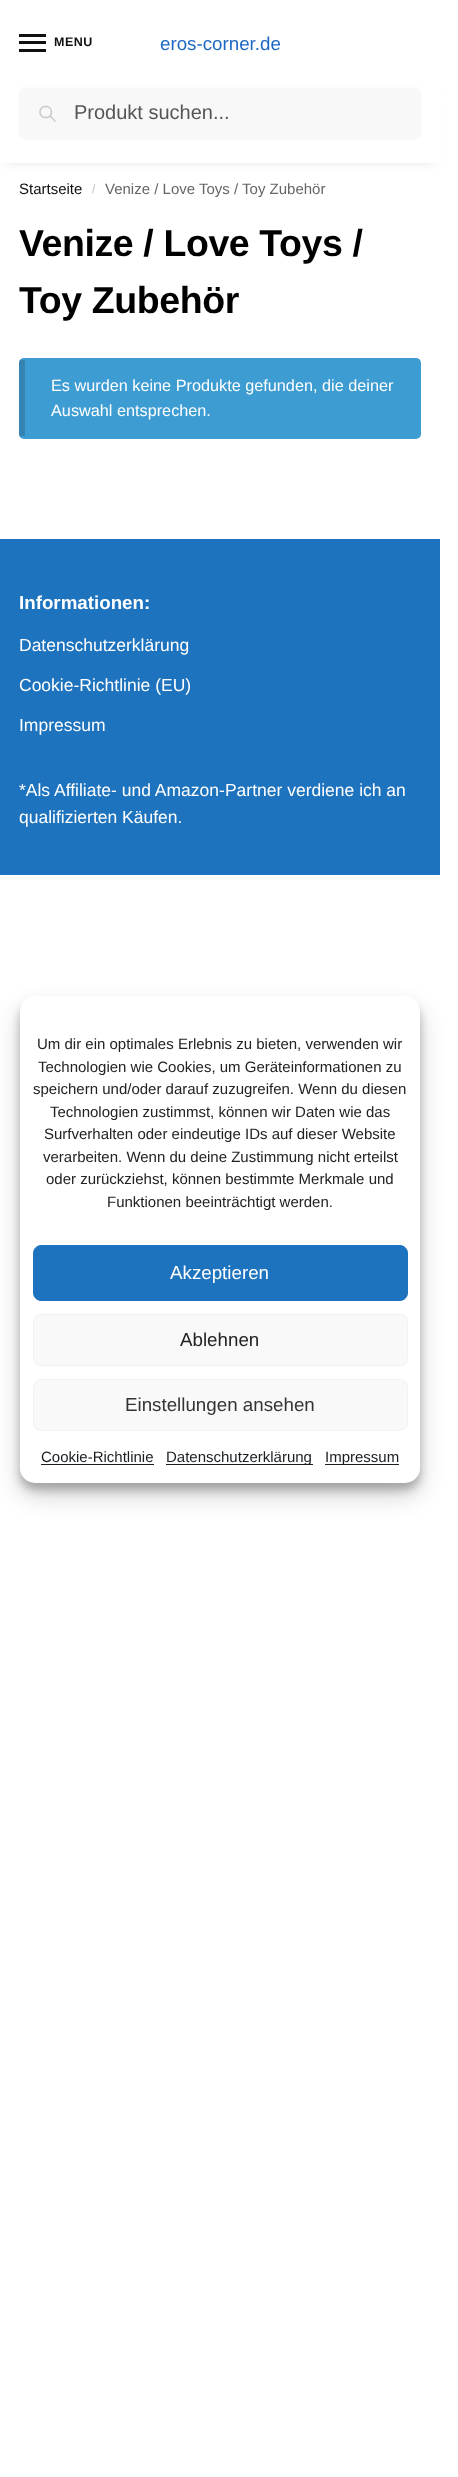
<svg xmlns="http://www.w3.org/2000/svg" width="458" height="2477">
<style>
.a{font:bold 12.5px Liberation Sans;letter-spacing:0.5px;fill:#111}
.b{font:18.75px Liberation Sans;fill:#1e68c4}
.c{font:20px Liberation Sans;fill:#555}
.d{font:15px Liberation Sans;fill:#111}
.e{font:12px Liberation Sans;fill:#c2c2c2}
.f{font:15px Liberation Sans;fill:#666}
.g{font:bold 37.5px Liberation Sans;letter-spacing:-0.4px;fill:#000}
.h{font:16.25px Liberation Sans;fill:#fff}
.i{font:bold 18.75px Liberation Sans;fill:#fff}
.j{font:17.5px Liberation Sans;fill:#fff}
.k{font:15px Liberation Sans;fill:#222}
.l{font:18.75px Liberation Sans;fill:#fff}
.m{font:18.75px Liberation Sans;fill:#222}
.n{font:18.75px Liberation Sans;fill:#333}
.o{font:15px Liberation Sans;fill:#191e23}
</style>
<rect width="100%" height="100%" fill="#fff"/>
<path fill="#111" d="M19 34h27v3H19z"/>
<path fill="#111" d="M19 41h27v3H19z"/>
<path fill="#111" d="M19 49h27v3H19z"/>
<path fill="#0000002e" filter="blur(6px)" d="M6 98h428v62H6z"/>
<path fill="#fff" d="M0 88h440v75H0z"/>
<rect fill="#0000000d" filter="blur(1px)" x="19" y="89" width="402" height="50" rx="6"/>
<rect fill="#f8f8f8" x="19" y="88" width="402" height="50" rx="6"/>
<path fill="none" stroke="#ccc" stroke-width="1.7" stroke-linecap="round" stroke-linejoin="round" d="M55 121l-5-5m1.5-4c0 7.5-11.5 7.5-11.5 0c0-7.5 11.5-7.5 11.5 0z"/>
<path fill="#fff" d="M440 96h4v66H440z"/>
<rect fill="#3d9cd2" x="19" y="358" width="402" height="81" rx="5"/>
<path fill="#00000026" d="M19 360h6v76H19z"/>
<path fill="#1e73be" d="M0 539h440v336H0z"/>
<rect fill="#0000003b" filter="blur(4px)" x="20" y="1004" width="400" height="486" rx="15"/>
<rect fill="#00000030" filter="blur(12.5px)" x="20" y="1009" width="400" height="486" rx="15"/>
<rect fill="#fff" x="20" y="996" width="400" height="487" rx="15"/>
<rect fill="#1e73be" stroke="#1e73be" x="33.5" y="1245.5" width="374" height="55" rx="7.5"/>
<rect fill="#f9f9f9" stroke="#f2f2f2" x="33.5" y="1314.5" width="374" height="51" rx="7.5"/>
<rect fill="#f9f9f9" stroke="#f2f2f2" x="33.5" y="1379.5" width="374" height="51" rx="7.5"/>
<path fill="#191e23" d="M41 1464h113v1H41z"/>
<path fill="#191e23" d="M166 1464h147v1H166z"/>
<path fill="#191e23" d="M325 1464h74v1H325z"/>
<text class="a" x="54" y="46">MENU</text>
<text class="b" x="160" y="50">eros-corner.de</text>
<text class="c" x="74" y="119">Produkt suchen...</text>
<text class="d" x="19" y="194">Startseite</text>
<text class="e" x="92" y="193">/</text>
<text class="f" x="105" y="194">Venize / Love Toys / Toy Zubehör</text>
<text class="g" x="19" y="256">Venize / Love Toys /</text>
<text class="g" x="19" y="313">Toy Zubehör</text>
<text class="h" x="51" y="391">Es wurden keine Produkte gefunden, die deiner</text>
<text class="h" x="51" y="416">Auswahl entsprechen.</text>
<text class="i" x="19" y="609">Informationen:</text>
<text class="j" x="19" y="651">Datenschutzerklärung</text>
<text class="j" x="19" y="691">Cookie-Richtlinie (EU)</text>
<text class="j" x="19" y="731">Impressum</text>
<text class="j" x="19" y="796">*Als Affiliate- und Amazon-Partner verdiene ich an</text>
<text class="j" x="19" y="823">qualifizierten Käufen.</text>
<text class="k" x="37" y="1049">Um dir ein optimales Erlebnis zu bieten, verwenden wir</text>
<text class="k" x="38" y="1072">Technologien wie Cookies, um Geräteinformationen zu</text>
<text class="k" x="33" y="1094">speichern und/oder darauf zuzugreifen. Wenn du diesen</text>
<text class="k" x="50" y="1117">Technologien zustimmst, können wir Daten wie das</text>
<text class="k" x="44" y="1139">Surfverhalten oder eindeutige IDs auf dieser Website</text>
<text class="k" x="43" y="1162">verarbeiten. Wenn du deine Zustimmung nicht erteilst</text>
<text class="k" x="46" y="1184">oder zurückziehst, können bestimmte Merkmale und</text>
<text class="k" x="107" y="1207">Funktionen beeinträchtigt werden.</text>
<text class="l" x="170" y="1279">Akzeptieren</text>
<text class="m" x="180" y="1346">Ablehnen</text>
<text class="n" x="125" y="1411">Einstellungen ansehen</text>
<text class="o" x="41" y="1462">Cookie-Richtlinie</text>
<text class="o" x="166" y="1462">Datenschutzerklärung</text>
<text class="o" x="325" y="1462">Impressum</text>
</svg>
